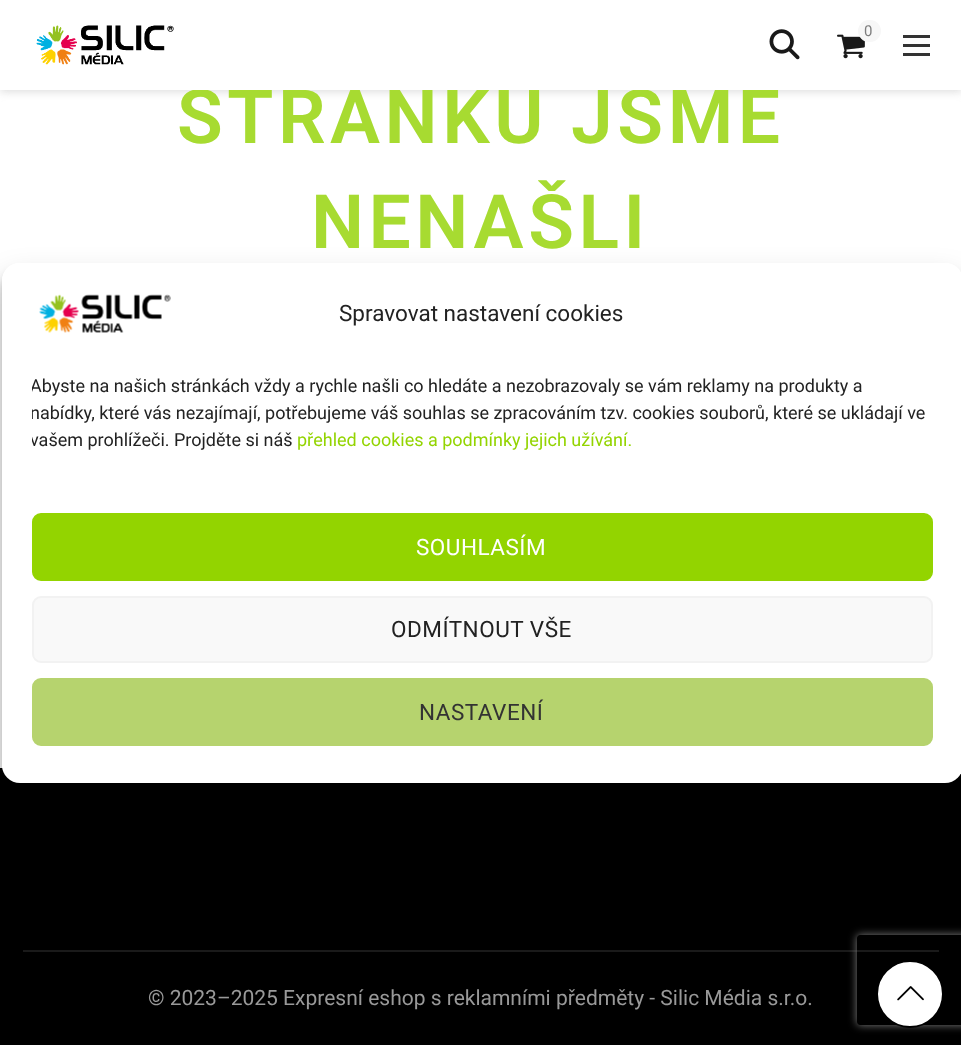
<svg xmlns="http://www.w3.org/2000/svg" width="961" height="1045">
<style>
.a{font:600 75px Roboto;letter-spacing:4.5px;fill:#a7db31}
.b{font:15px Roboto;fill:#7e7e7e}
.c{font:21px Roboto;fill:#999}
.d{font:22.5px Roboto;fill:#222}
.e{font:18px Roboto;fill:#222}
.f{font:18px Roboto;fill:#93d400}
.g{font:22.5px Roboto;letter-spacing:0.5px;fill:#fff}
.h{font:22.5px Roboto;letter-spacing:0.5px;fill:#222}
.i{font:22.5px Roboto;letter-spacing:0.5px;fill:#333}
</style>
<defs>
<clipPath id="clip1"><path d="M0 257h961v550h-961zm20 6h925c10 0 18 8 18 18v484c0 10-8 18-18 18h-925c-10 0-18-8-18-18v-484c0-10 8-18 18-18z" clip-rule="evenodd"/></clipPath>
<clipPath id="clip2"><path d="M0 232h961v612h-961zm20 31h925c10 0 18 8 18 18v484c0 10-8 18-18 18h-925c-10 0-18-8-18-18v-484c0-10 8-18 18-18z" clip-rule="evenodd"/></clipPath>
<clipPath id="clip3"><path d="M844 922h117v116h-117zm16 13h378c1.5 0 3 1.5 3 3v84c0 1.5-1.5 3-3 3h-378c-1.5 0-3-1.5-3-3v-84c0-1.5 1.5-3 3-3z" clip-rule="evenodd"/></clipPath>
<clipPath id="clip4"><path d="M32 372h901v111H32z"/></clipPath>
</defs>
<rect width="100%" height="100%" fill="#fff"/>
<path fill="#bebebe80" filter="blur(4px)" d="M0 2h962v90H0z"/>
<path fill="#000" d="M0 768h961v277H0z"/>
<path fill="#1a1a1a" d="M23 950h916v2H23z"/>
<g clip-path="url(#clip1)">
<rect fill="#0000003b" filter="blur(4.5px)" x="2" y="272" width="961" height="520" rx="18"/>
</g>
<g clip-path="url(#clip2)">
<rect fill="#00000030" filter="blur(15px)" x="2" y="278" width="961" height="520" rx="18"/>
</g>
<rect fill="#fff" x="2" y="263" width="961" height="520" rx="18"/>
<image href="4.png" x="39" y="294" width="132" height="39"/>
<rect fill="#93d400" stroke="#93d400" stroke-width="2" x="33" y="514" width="899" height="66" rx="8"/>
<rect fill="#f9f9f9" stroke="#f2f2f2" stroke-width="2" x="33" y="597" width="899" height="65" rx="8"/>
<rect fill="#b6d36e" stroke="#b6d36e" stroke-width="2" x="33" y="679" width="899" height="66" rx="8"/>
<g clip-path="url(#clip3)">
<rect fill="#808080" filter="blur(4px)" x="857" y="935" width="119" height="90" rx="3"/>
</g>
<circle fill="#fff" stroke="#000" stroke-width="2" cx="910" cy="994" r="33"/>
<image href="5.png" x="897" y="986" width="27" height="15"/>
<text class="a" x="177" y="143">STRÁNKU JSME</text>
<path fill="#fff" d="M0 0h961v90H0z"/>
<path fill="#333" d="M903 53h27v3H903z"/>
<path fill="#333" d="M903 35h27v3H903z"/>
<path fill="#333" d="M903 44h27v3H903z"/>
<image href="3.png" x="837" y="34" width="28" height="25"/>
<rect fill="#f7f7f7" x="858" y="20" width="23" height="22" rx="11"/>
<text class="b" x="864" y="36">0</text>
<image href="2.png" x="769" y="29" width="31" height="31"/>
<image href="1.png" x="36" y="25" width="138" height="40"/>
<text class="a" x="311" y="248">NENAŠLI</text>
<text class="c" x="148" y="1005">© 2023–2025 Expresní eshop s reklamními předměty - Silic Média s.r.o.</text>
<text class="d" x="339" y="321">Spravovat nastavení cookies</text>
<g clip-path="url(#clip4)">
<text class="e" x="30" y="392">Abyste na našich stránkách vždy a rychle našli co hledáte a nezobrazovaly se vám reklamy na produkty a</text>
<text class="e" x="30" y="419">nabídky, které vás nezajímají, potřebujeme váš souhlas se zpracováním tzv. cookies souborů, které se ukládají ve</text>
<text class="e" x="30" y="446">vašem prohlížeči. Projděte si náš</text>
</g>
<text class="f" x="297" y="446">přehled cookies a podmínky jejich užívání.</text>
<text class="g" x="416" y="555">SOUHLASÍM</text>
<text class="h" x="391" y="637">ODMÍTNOUT VŠE</text>
<text class="i" x="419" y="720">NASTAVENÍ</text>
</svg>
